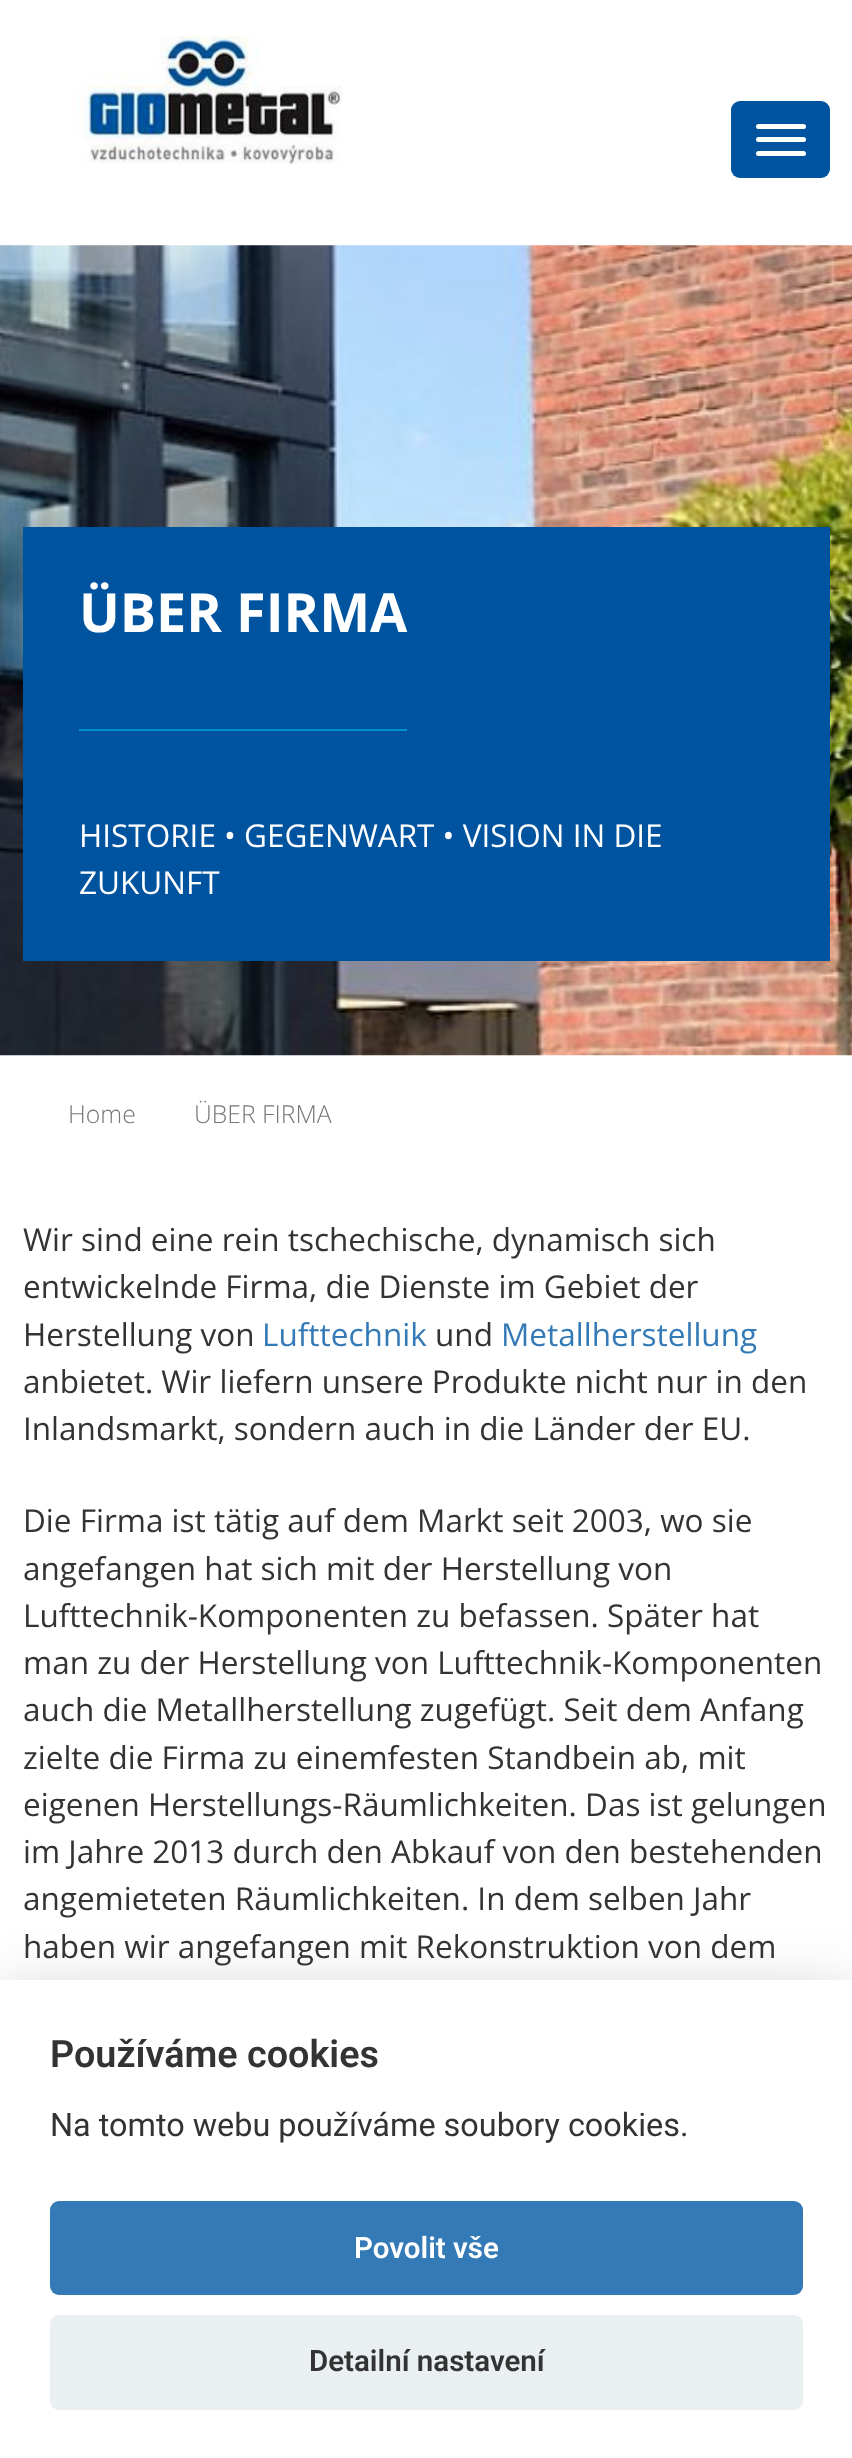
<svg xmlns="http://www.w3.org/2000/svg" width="852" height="2458">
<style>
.a{font:bold 54px Open Sans;fill:#fff}
.b{font:31.5px Open Sans;fill:#fff}
.c{font:300 24.75px Open Sans;fill:#787777}
.d{font:31.5px Open Sans;fill:#333}
.e{font:31.5px Open Sans;fill:#337ab7}
.f{font:600 37.75px Roboto;fill:#333}
.g{font:32.4px Roboto;fill:#333}
.h{font:600 29.5px Roboto;fill:#fff}
.i{font:600 29.5px Roboto;fill:#333}
</style>
<rect width="100%" height="100%" fill="#fff"/>
<image href="1.png" x="72" y="36" width="270" height="130"/>
<rect fill="#00549f" x="731" y="101" width="99" height="77" rx="9"/>
<rect fill="#fff" x="756" y="124" width="50" height="5" rx="2.5"/>
<rect fill="#fff" x="756" y="137" width="50" height="5" rx="2.5"/>
<rect fill="#fff" x="756" y="151" width="50" height="5" rx="2.5"/>
<image href="2.png" x="0" y="245" width="852" height="811"/>
<path fill="#00549f" d="M23 527h807v434H23z"/>
<path fill="#0092c9" d="M79 729h328v2H79z"/>
<path fill="#02020347" filter="blur(34px)" d="M0 2003h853v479H0z"/>
<path fill="#fff" d="M0 1980h852v478H0z"/>
<rect fill="#337ab7" x="50" y="2201" width="753" height="94" rx="9"/>
<rect fill="#eaeff2" x="50" y="2315" width="753" height="95" rx="9"/>
<text class="a" x="79" y="632">ÜBER FIRMA</text>
<text class="b" x="79" y="847">HISTORIE • GEGENWART • VISION IN DIE</text>
<text class="b" x="79" y="894">ZUKUNFT</text>
<text class="c" x="68" y="1123">Home</text>
<text class="c" x="194" y="1123">ÜBER FIRMA</text>
<text class="d" x="23" y="1251">Wir sind eine rein tschechische, dynamisch sich</text>
<text class="d" x="23" y="1298">entwickelnde Firma, die Dienste im Gebiet der</text>
<text class="d" x="23" y="1346">Herstellung von</text>
<text class="e" x="262" y="1346">Lufttechnik</text>
<text class="d" x="435" y="1346">und</text>
<text class="e" x="501" y="1346">Metallherstellung</text>
<text class="d" x="23" y="1393">anbietet. Wir liefern unsere Produkte nicht nur in den</text>
<text class="d" x="23" y="1440">Inlandsmarkt, sondern auch in die Länder der EU.</text>
<text class="d" x="23" y="1532">Die Firma ist tätig auf dem Markt seit 2003, wo sie</text>
<text class="d" x="23" y="1580">angefangen hat sich mit der Herstellung von</text>
<text class="d" x="23" y="1627">Lufttechnik-Komponenten zu befassen. Später hat</text>
<text class="d" x="23" y="1674">man zu der Herstellung von Lufttechnik-Komponenten</text>
<text class="d" x="23" y="1721">auch die Metallherstellung zugefügt. Seit dem Anfang</text>
<text class="d" x="23" y="1769">zielte die Firma zu einemfesten Standbein ab, mit</text>
<text class="d" x="23" y="1816">eigenen Herstellungs-Räumlichkeiten. Das ist gelungen</text>
<text class="d" x="23" y="1863">im Jahre 2013 durch den Abkauf von den bestehenden</text>
<text class="d" x="23" y="1910">angemieteten Räumlichkeiten. In dem selben Jahr</text>
<text class="d" x="23" y="1958">haben wir angefangen mit Rekonstruktion von dem</text>
<text class="f" x="50" y="2067">Používáme cookies</text>
<text class="g" x="50" y="2136">Na tomto webu používáme soubory cookies.</text>
<text class="h" x="354" y="2258">Povolit vše</text>
<text class="i" x="309" y="2371">Detailní nastavení</text>
</svg>
